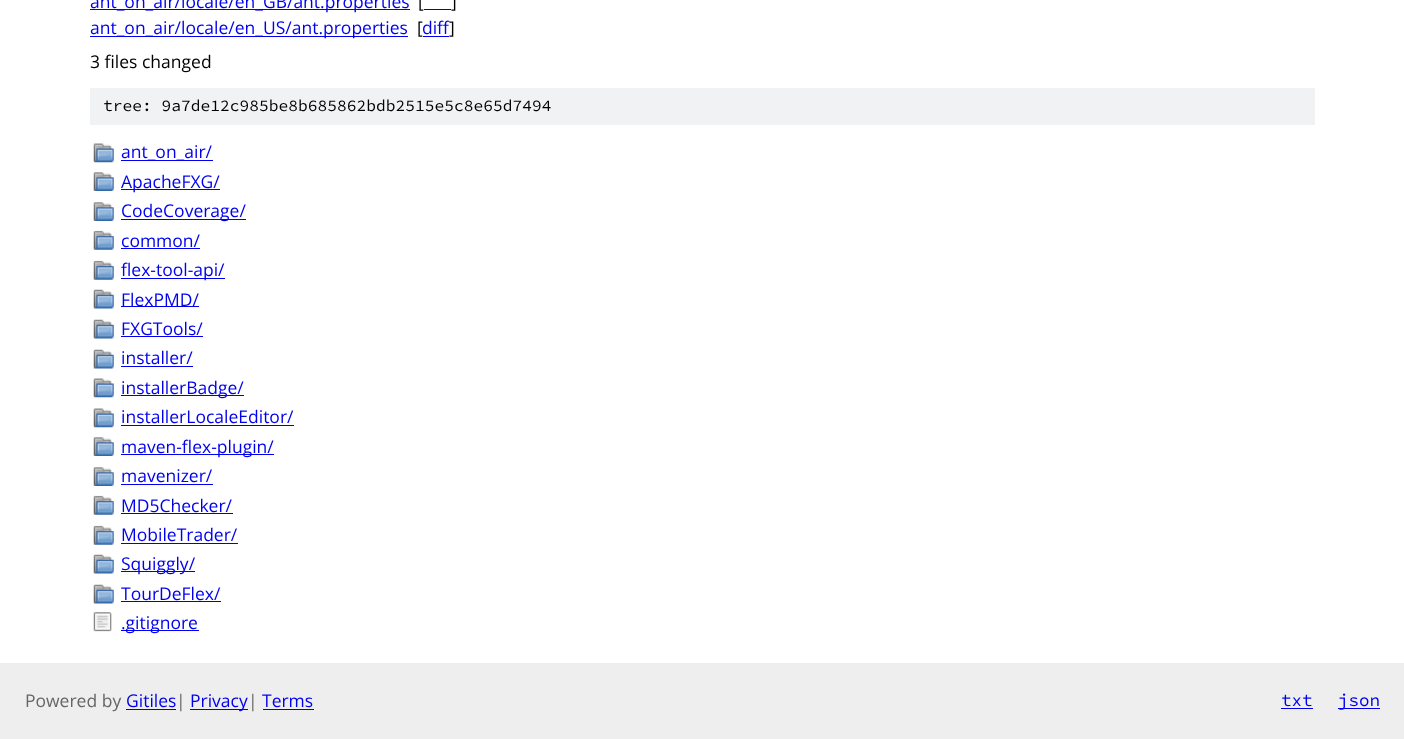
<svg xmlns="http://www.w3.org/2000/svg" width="1404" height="739">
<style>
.a{font:17.5px Open Sans;fill:#00e}
.b{font:17.5px Open Sans;fill:#000}
.c{font:200 16.25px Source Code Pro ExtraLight;fill:#000}
.d{font:17.5px Open Sans;fill:#666}
.e{font:200 17.5px Source Code Pro ExtraLight;fill:#00e}
</style>
<rect width="100%" height="100%" fill="#fff"/>
<path fill="#00e" d="M90 9h320v1H90z"/>
<path fill="#00e" d="M424 9h27v1H424z"/>
<path fill="#00e" d="M90 36h318v1H90z"/>
<path fill="#00e" d="M423 36h26v1H423z"/>
<path fill="#f1f2f3" d="M90 88h1225v37H90z"/>
<image href="1.png" x="93" y="143" width="21" height="20"/>
<path fill="#00e" d="M121 160h92v1H121z"/>
<image href="2.png" x="93" y="172" width="21" height="19"/>
<path fill="#00e" d="M121 189h99v1H121z"/>
<image href="2.png" x="93" y="202" width="21" height="19"/>
<path fill="#00e" d="M121 219h125v1H121z"/>
<image href="3.png" x="93" y="230" width="21" height="20"/>
<path fill="#00e" d="M121 248h79v1H121z"/>
<image href="3.png" x="93" y="260" width="21" height="20"/>
<path fill="#00e" d="M121 278h104v1H121z"/>
<image href="4.png" x="93" y="289" width="21" height="20"/>
<path fill="#00e" d="M121 306h78v1H121z"/>
<image href="4.png" x="93" y="319" width="21" height="20"/>
<path fill="#00e" d="M121 336h82v1H121z"/>
<image href="4.png" x="93" y="349" width="21" height="20"/>
<path fill="#00e" d="M121 366h72v1H121z"/>
<image href="1.png" x="93" y="378" width="21" height="20"/>
<path fill="#00e" d="M121 395h123v1H121z"/>
<image href="1.png" x="93" y="408" width="21" height="20"/>
<path fill="#00e" d="M121 425h173v1H121z"/>
<image href="2.png" x="93" y="437" width="21" height="19"/>
<path fill="#00e" d="M121 454h153v1H121z"/>
<image href="2.png" x="93" y="467" width="21" height="19"/>
<path fill="#00e" d="M121 484h92v1H121z"/>
<image href="3.png" x="93" y="495" width="21" height="20"/>
<path fill="#00e" d="M121 513h112v1H121z"/>
<image href="3.png" x="93" y="525" width="21" height="20"/>
<path fill="#00e" d="M121 543h117v1H121z"/>
<image href="5.png" x="93" y="554" width="21" height="20"/>
<path fill="#00e" d="M121 571h74v1H121z"/>
<image href="4.png" x="93" y="584" width="21" height="20"/>
<path fill="#00e" d="M121 601h100v1H121z"/>
<image href="6.png" x="93" y="612" width="19" height="20"/>
<path fill="#00e" d="M121 630h78v1H121z"/>
<path fill="#eee" d="M0 663h1404v76H0z"/>
<path fill="#00e" d="M126 709h50v1H126z"/>
<path fill="#00e" d="M190 709h58v1H190z"/>
<path fill="#00e" d="M263 709h51v1H263z"/>
<path fill="#00e" d="M1281 708h32v1H1281z"/>
<path fill="#00e" d="M1338 708h42v1H1338z"/>
<text class="a" x="90" y="8">ant_on_air/locale/en_GB/ant.properties</text>
<text class="b" x="418" y="8">[</text>
<text class="b" x="451" y="8">]</text>
<text class="a" x="90" y="34">ant_on_air/locale/en_US/ant.properties</text>
<text class="b" x="417" y="34">[</text>
<text class="a" x="422" y="34">diff</text>
<text class="b" x="449" y="34">]</text>
<text class="b" x="90" y="68">3 files changed</text>
<text class="c" x="103" y="111">tree: 9a7de12c985be8b685862bdb2515e5c8e65d7494</text>
<text class="a" x="121" y="158">ant_on_air/</text>
<text class="a" x="121" y="188">ApacheFXG/</text>
<text class="a" x="121" y="217">CodeCoverage/</text>
<text class="a" x="121" y="247">common/</text>
<text class="a" x="121" y="276">flex-tool-api/</text>
<text class="a" x="121" y="306">FlexPMD/</text>
<text class="a" x="121" y="335">FXGTools/</text>
<text class="a" x="121" y="364">installer/</text>
<text class="a" x="121" y="394">installerBadge/</text>
<text class="a" x="121" y="423">installerLocaleEditor/</text>
<text class="a" x="121" y="453">maven-flex-plugin/</text>
<text class="a" x="121" y="482">mavenizer/</text>
<text class="a" x="121" y="512">MD5Checker/</text>
<text class="a" x="121" y="541">MobileTrader/</text>
<text class="a" x="121" y="570">Squiggly/</text>
<text class="a" x="121" y="600">TourDeFlex/</text>
<text class="a" x="121" y="629">.gitignore</text>
<text class="d" x="25" y="707">Powered by</text>
<text class="a" x="126" y="707">Gitiles</text>
<text class="d" x="176" y="707">|</text>
<text class="a" x="190" y="707">Privacy</text>
<text class="d" x="248" y="707">|</text>
<text class="a" x="262" y="707">Terms</text>
<text class="e" x="1281" y="706">txt</text>
<text class="e" x="1338" y="706">json</text>
</svg>
